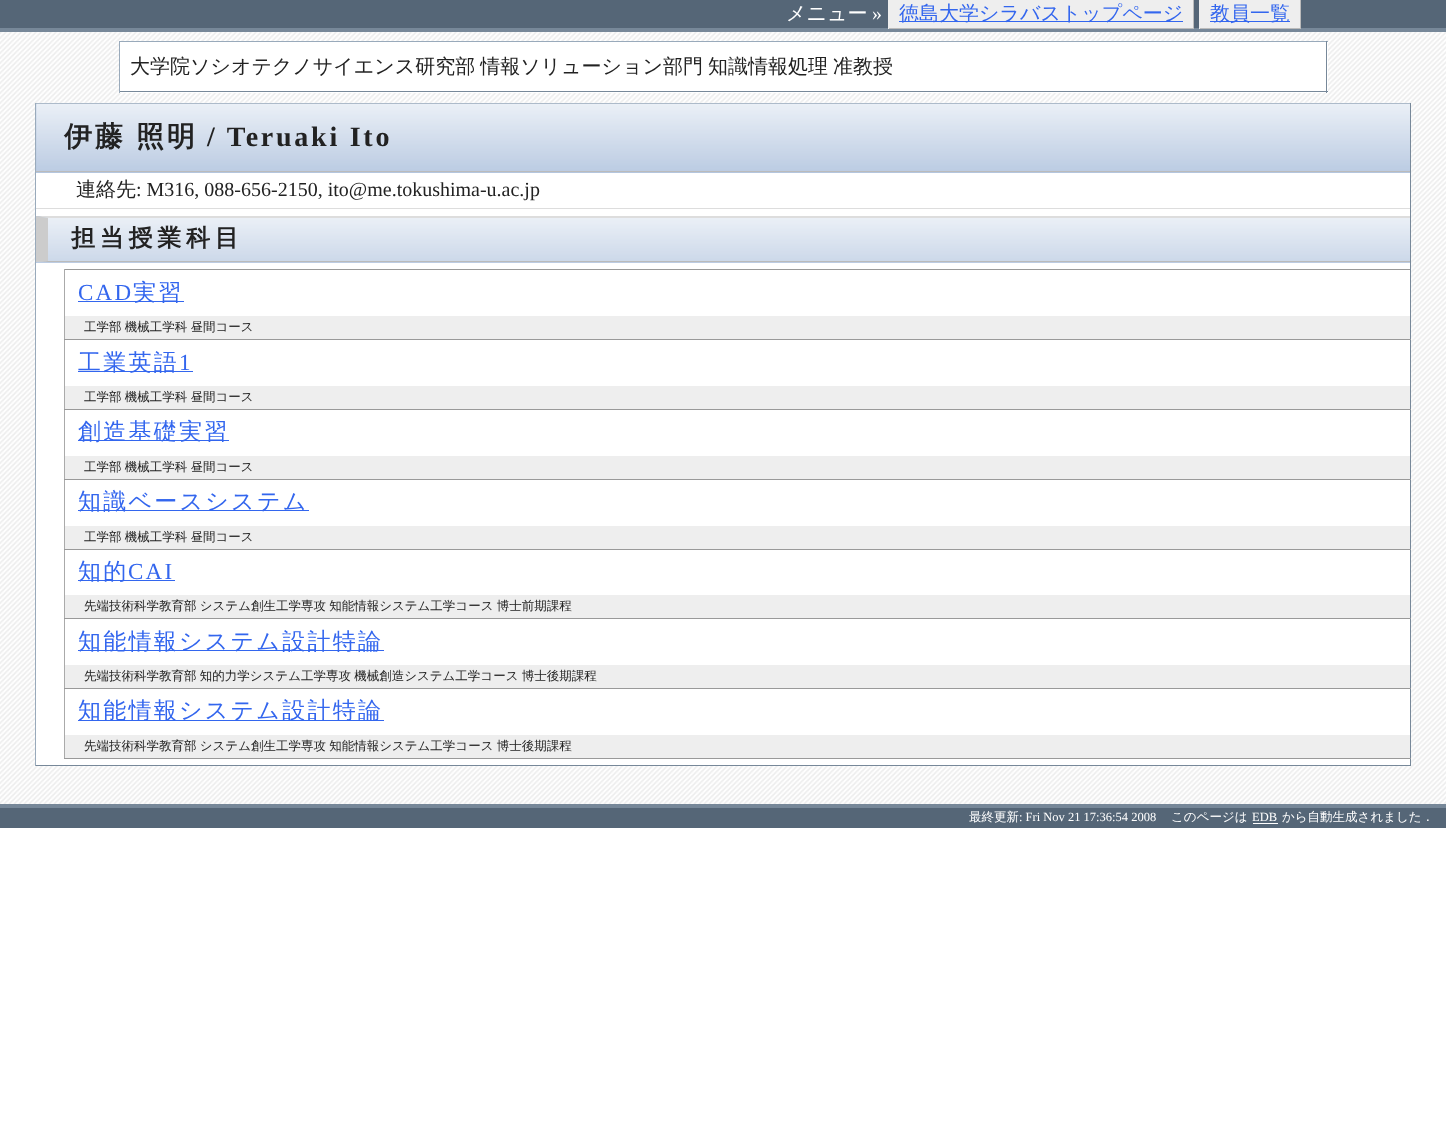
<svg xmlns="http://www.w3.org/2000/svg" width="1446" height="1132">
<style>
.a{font:500 20px WenQuanYi Zen Hei;fill:#fff}
.b{font:20px Liberation Serif;fill:#fff}
.c{font:500 20px WenQuanYi Zen Hei;fill:#36e}
.d{font:500 20px WenQuanYi Zen Hei;fill:#222}
.e{font:bold 28px WenQuanYi Zen Hei;letter-spacing:2.75px;fill:#222}
.f{font:bold 28px Liberation Serif;letter-spacing:2.75px;fill:#222}
.g{font:20px Liberation Serif;fill:#222}
.h{font:bold 24px WenQuanYi Zen Hei;letter-spacing:4.75px;fill:#222}
.i{font:23px Liberation Serif;letter-spacing:2.25px;fill:#36e}
.j{font:500 23px WenQuanYi Zen Hei;letter-spacing:2.25px;fill:#36e}
.k{font:500 12.5px WenQuanYi Zen Hei;fill:#222}
.l{font:500 12.5px WenQuanYi Zen Hei;fill:#fff}
.m{font:12.5px Liberation Serif;fill:#fff}
</style>
<rect width="100%" height="100%" fill="#fff"/>
<path fill="#eee" d="M0 32h1446v772H0z"/>
<image href="1.png" x="0" y="32" width="1446" height="772"/>
<path fill="#567" d="M0 0h1446v28H0z"/>
<path fill="#789" d="M0 28h1446v4H0z"/>
<path fill="#eee" d="M889 0h304v28H889z"/>
<path fill="#bbb" d="M1193 0h1v29H1193z"/>
<path fill="#bbb" d="M888 28h306v1H888z"/>
<path fill="#eee" d="M888 0h1v29H888z"/>
<path fill="#36e" d="M899 21h284v1H899z"/>
<path fill="#eee" d="M1200 0h100v28H1200z"/>
<path fill="#bbb" d="M1300 0h1v29H1300z"/>
<path fill="#bbb" d="M1199 28h102v1H1199z"/>
<path fill="#eee" d="M1199 0h1v29H1199z"/>
<path fill="#36e" d="M1210 21h80v1H1210z"/>
<path fill="#fff" d="M120 42h1208v51H120z"/>
<path fill="#9ab" d="M119 41h1209v1H119z"/>
<path fill="#789" d="M1326 41h1v52H1326z"/>
<path fill="#789" d="M119 91h1209v1H119z"/>
<path fill="#9ab" d="M119 41h1v52H119z"/>
<path fill="#fff" d="M36 173h1374v592H36z"/>
<path fill="#9ab" d="M35 103h1376v1H35z"/>
<path fill="#789" d="M1410 103h1v663H1410z"/>
<path fill="#789" d="M35 765h1376v1H35z"/>
<path fill="#9ab" d="M35 103h1v663H35z"/>
<path fill="#acc0dc" d="M36 104h1374v69H36z"/>
<image href="2.png" x="36" y="103" width="1374" height="70"/>
<path fill="#bbb" d="M36 171h1374v1H36z"/>
<path fill="#ddd" d="M36 208h1374v1H36z"/>
<path fill="#acc0dc" d="M36 216h1374v47H36z"/>
<image href="3.png" x="36" y="217" width="1374" height="46"/>
<path fill="#ddd" d="M36 216h1374v2h-1362z"/>
<path fill="#bbb" d="M1410 262h-1374l12-1h1362z"/>
<path fill="#ccc" d="M36 262v-46l12 2v43z"/>
<path fill="#999" d="M64 269h1346v1H64z"/>
<path fill="#aaa" d="M64 269h1v490H64z"/>
<path fill="#36e" d="M78 301h106v1H78z"/>
<path fill="#eee" d="M65 316h1345v23H65z"/>
<path fill="#999" d="M64 339h1347v1H64z"/>
<path fill="#36e" d="M78 371h115v1H78z"/>
<path fill="#eee" d="M65 386h1345v23H65z"/>
<path fill="#999" d="M64 409h1347v1H64z"/>
<path fill="#36e" d="M78 440h151v1H78z"/>
<path fill="#eee" d="M65 456h1345v23H65z"/>
<path fill="#999" d="M64 479h1347v1H64z"/>
<path fill="#36e" d="M78 510h231v1H78z"/>
<path fill="#eee" d="M65 526h1345v23H65z"/>
<path fill="#999" d="M64 549h1347v1H64z"/>
<path fill="#36e" d="M78 580h97v1H78z"/>
<path fill="#eee" d="M65 595h1345v23H65z"/>
<path fill="#999" d="M64 618h1347v1H64z"/>
<path fill="#36e" d="M78 650h306v1H78z"/>
<path fill="#eee" d="M65 665h1345v23H65z"/>
<path fill="#999" d="M64 688h1347v1H64z"/>
<path fill="#36e" d="M78 720h306v1H78z"/>
<path fill="#eee" d="M65 735h1345v23H65z"/>
<path fill="#999" d="M64 758h1347v1H64z"/>
<path fill="#567" d="M0 808h1446v20H0z"/>
<path fill="#789" d="M0 804h1446v4H0z"/>
<path fill="#fff" d="M1253 823h25v1H1253z"/>
<text class="a" x="786" y="20">メニュー</text>
<text class="b" x="872" y="20">»</text>
<text class="c" x="899" y="20">徳島大学シラバストップページ</text>
<text class="c" x="1210" y="20">教員一覧</text>
<text class="d" x="130" y="73" word-spacing="-1">大学院ソシオテクノサイエンス研究部 情報ソリューション部門 知識情報処理 准教授</text>
<text class="e" x="64" y="146">伊藤</text>
<text class="e" x="136" y="146">照明</text>
<text class="f" x="207" y="146">/ Teruaki Ito</text>
<text class="d" x="76" y="196">連絡先</text>
<text class="g" x="136" y="196">: M316, 088-656-2150, ito@me.tokushima-u.ac.jp</text>
<text class="h" x="71" y="246">担当授業科目</text>
<text class="i" x="78" y="300">CAD</text>
<text class="j" x="133" y="300">実習</text>
<text class="k" x="84" y="331" word-spacing="-0.5">工学部 機械工学科 昼間コース</text>
<text class="j" x="78" y="370">工業英語</text>
<text class="i" x="179" y="370">1</text>
<text class="k" x="84" y="401" word-spacing="-0.5">工学部 機械工学科 昼間コース</text>
<text class="j" x="78" y="439">創造基礎実習</text>
<text class="k" x="84" y="471" word-spacing="-0.5">工学部 機械工学科 昼間コース</text>
<text class="j" x="78" y="509">知識ベースシステム</text>
<text class="k" x="84" y="541" word-spacing="-0.5">工学部 機械工学科 昼間コース</text>
<text class="j" x="78" y="579">知的</text>
<text class="i" x="128" y="579">CAI</text>
<text class="k" x="84" y="610" word-spacing="-0.5">先端技術科学教育部 システム創生工学専攻 知能情報システム工学コース 博士前期課程</text>
<text class="j" x="78" y="649">知能情報システム設計特論</text>
<text class="k" x="84" y="680" word-spacing="-0.5">先端技術科学教育部 知的力学システム工学専攻 機械創造システム工学コース 博士後期課程</text>
<text class="j" x="78" y="718">知能情報システム設計特論</text>
<text class="k" x="84" y="750" word-spacing="-0.5">先端技術科学教育部 システム創生工学専攻 知能情報システム工学コース 博士後期課程</text>
<text class="l" x="969" y="821">最終更新</text>
<text class="m" x="1019" y="821">: Fri Nov 21 17:36:54 2008</text>
<text class="l" x="1171" y="821">このページは</text>
<text class="m" x="1252" y="821">EDB</text>
<text class="l" x="1282" y="821">から自動生成されました．</text>
</svg>
